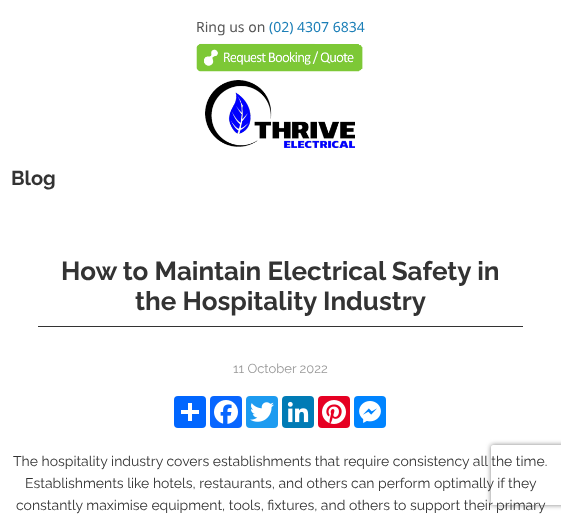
<svg xmlns="http://www.w3.org/2000/svg" width="561" height="519">
<style>
.a{font:14px Noto Sans;fill:#555}
.b{font:14px Noto Sans;fill:#1c7fb7}
.c{font:bold 20px Raleway;fill:#333}
.d{font:bold 26px Raleway;fill:#333}
.e{font:13px Raleway;fill:#999}
.f{font:14px Raleway;fill:#333}
</style>
<defs>
<clipPath id="clip1"><path d="M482 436h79v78h-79zm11 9h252c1 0 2 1 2 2v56c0 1-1 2-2 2h-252c-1 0-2-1-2-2v-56c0-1 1-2 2-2z" clip-rule="evenodd"/></clipPath>
</defs>
<rect width="100%" height="100%" fill="#fff"/>
<image href="1.png" x="196" y="43" width="167" height="29"/>
<image href="2.png" x="205" y="80" width="150" height="68"/>
<path fill="#333" d="M38 326h485v1H38z"/>
<rect fill="#0166ff" x="174" y="396" width="32" height="32" rx="4"/>
<path fill="#fff" d="M188 403h4v18H188z"/>
<path fill="#fff" d="M181 410h18v4H181z"/>
<rect fill="#0866ff" x="210" y="396" width="32" height="32" rx="4"/>
<image href="3.png" x="214" y="400" width="24" height="24"/>
<rect fill="#1d9bf0" x="246" y="396" width="32" height="32" rx="4"/>
<image href="4.png" x="250" y="402" width="24" height="20"/>
<rect fill="#007bb5" x="282" y="396" width="32" height="32" rx="4"/>
<image href="5.png" x="287" y="401" width="22" height="22"/>
<rect fill="#e60023" x="318" y="396" width="32" height="32" rx="4"/>
<image href="6.png" x="322" y="400" width="24" height="24"/>
<rect fill="#0084ff" x="354" y="396" width="32" height="32" rx="4"/>
<image href="7.png" x="359" y="401" width="22" height="22"/>
<g clip-path="url(#clip1)">
<rect fill="#808080" filter="blur(2.5px)" x="491" y="445" width="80" height="60" rx="2"/>
</g>
<text class="a" x="196" y="32">Ring us on</text>
<text class="b" x="269" y="32">(02) 4307 6834</text>
<text class="c" x="11" y="185">Blog</text>
<text class="d" x="61" y="280">How to Maintain Electrical Safety in</text>
<text class="d" x="135" y="310">the Hospitality Industry</text>
<text class="e" x="233" y="373">11 October 2022</text>
<text class="f" x="13" y="466">The hospitality industry covers establishments that require consistency all the time.</text>
<text class="f" x="25" y="488">Establishments like hotels, restaurants, and others can perform optimally if they</text>
<text class="f" x="16" y="510">constantly maximise equipment, tools, fixtures, and others to support their primary</text>
</svg>
